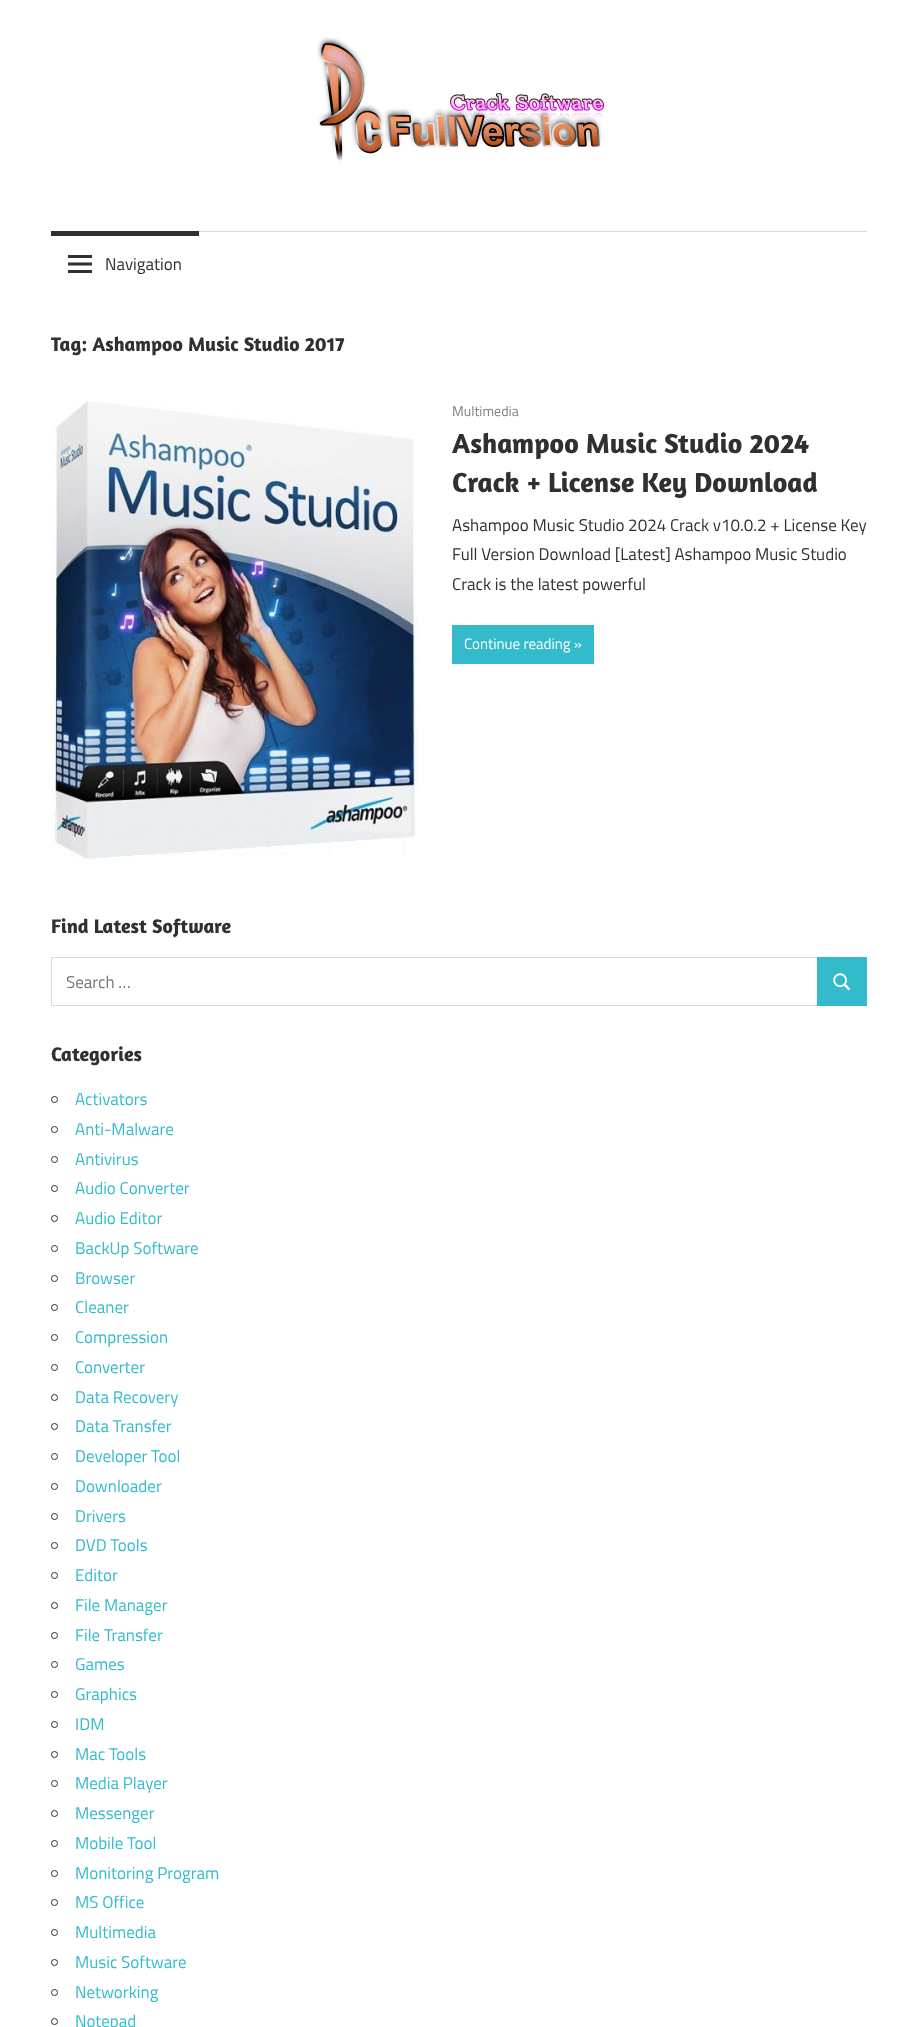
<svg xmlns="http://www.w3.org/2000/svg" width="918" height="2027">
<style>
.a{font:17px Titillium Web;fill:#303030}
.b{font:bold 20px Amaranth;fill:#303030}
.c{font:14px Titillium Web;fill:#808080}
.d{font:bold 28px Amaranth;fill:#303030}
.e{font:15px Titillium Web;fill:#fff}
.f{font:17px Titillium Web;fill:#757575}
.g{font:17px Titillium Web;fill:#3bc}
</style>
<rect width="100%" height="100%" fill="#fff"/>
<image href="1.png" x="317" y="37" width="287" height="124"/>
<path fill="#d9d9d9" d="M199 231h668v1H199z"/>
<path fill="#303030" d="M51 231h148v5H51z"/>
<image href="2.png" x="68" y="255" width="24" height="18"/>
<image href="3.png" x="51" y="401" width="367" height="460"/>
<path fill="#3bc" d="M452 625h142v39H452z"/>
<path fill="none" stroke="#d9d9d9" d="M51.5 957.5h766v48H51.5z"/>
<path fill="#3bc" d="M817 957h50v49H817z"/>
<image href="4.png" x="833" y="973" width="18" height="18"/>
<circle fill="none" stroke="#303030" cx="54.5" cy="1099.5" r="3"/>
<circle fill="none" stroke="#303030" cx="54.5" cy="1129.5" r="3"/>
<circle fill="none" stroke="#303030" cx="54.5" cy="1159.5" r="3"/>
<circle fill="none" stroke="#303030" cx="54.5" cy="1188.5" r="3"/>
<circle fill="none" stroke="#303030" cx="54.5" cy="1218.5" r="3"/>
<circle fill="none" stroke="#303030" cx="54.5" cy="1248.5" r="3"/>
<circle fill="none" stroke="#303030" cx="54.5" cy="1278.5" r="3"/>
<circle fill="none" stroke="#303030" cx="54.5" cy="1307.5" r="3"/>
<circle fill="none" stroke="#303030" cx="54.5" cy="1337.5" r="3"/>
<circle fill="none" stroke="#303030" cx="54.5" cy="1367.5" r="3"/>
<circle fill="none" stroke="#303030" cx="54.5" cy="1397.5" r="3"/>
<circle fill="none" stroke="#303030" cx="54.5" cy="1426.5" r="3"/>
<circle fill="none" stroke="#303030" cx="54.5" cy="1456.5" r="3"/>
<circle fill="none" stroke="#303030" cx="54.5" cy="1486.5" r="3"/>
<circle fill="none" stroke="#303030" cx="54.5" cy="1516.5" r="3"/>
<circle fill="none" stroke="#303030" cx="54.5" cy="1545.5" r="3"/>
<circle fill="none" stroke="#303030" cx="54.5" cy="1575.5" r="3"/>
<circle fill="none" stroke="#303030" cx="54.5" cy="1605.5" r="3"/>
<circle fill="none" stroke="#303030" cx="54.5" cy="1635.5" r="3"/>
<circle fill="none" stroke="#303030" cx="54.5" cy="1664.5" r="3"/>
<circle fill="none" stroke="#303030" cx="54.5" cy="1694.5" r="3"/>
<circle fill="none" stroke="#303030" cx="54.5" cy="1724.5" r="3"/>
<circle fill="none" stroke="#303030" cx="54.5" cy="1754.5" r="3"/>
<circle fill="none" stroke="#303030" cx="54.5" cy="1783.5" r="3"/>
<circle fill="none" stroke="#303030" cx="54.5" cy="1813.5" r="3"/>
<circle fill="none" stroke="#303030" cx="54.5" cy="1843.5" r="3"/>
<circle fill="none" stroke="#303030" cx="54.5" cy="1873.5" r="3"/>
<circle fill="none" stroke="#303030" cx="54.5" cy="1902.5" r="3"/>
<circle fill="none" stroke="#303030" cx="54.5" cy="1932.5" r="3"/>
<circle fill="none" stroke="#303030" cx="54.5" cy="1962.5" r="3"/>
<circle fill="none" stroke="#303030" cx="54.5" cy="1992.5" r="3"/>
<circle fill="none" stroke="#303030" cx="54.5" cy="2021.5" r="3"/>
<text class="a" x="105" y="270">Navigation</text>
<text class="b" x="51" y="351">Tag: Ashampoo Music Studio 2017</text>
<text class="c" x="452" y="416">Multimedia</text>
<text class="d" x="452" y="453">Ashampoo Music Studio 2024</text>
<text class="d" x="452" y="492">Crack + License Key Download</text>
<text class="a" x="452" y="531">Ashampoo Music Studio 2024 Crack v10.0.2 + License Key</text>
<text class="a" x="452" y="560">Full Version Download [Latest] Ashampoo Music Studio</text>
<text class="a" x="452" y="590">Crack is the latest powerful</text>
<text class="e" x="464" y="649">Continue reading »</text>
<text class="b" x="51" y="933">Find Latest Software</text>
<text class="f" x="66" y="988">Search …</text>
<text class="b" x="51" y="1061">Categories</text>
<text class="g" x="75" y="1105">Activators</text>
<text class="g" x="75" y="1135">Anti-Malware</text>
<text class="g" x="75" y="1165">Antivirus</text>
<text class="g" x="75" y="1194">Audio Converter</text>
<text class="g" x="75" y="1224">Audio Editor</text>
<text class="g" x="75" y="1254">BackUp Software</text>
<text class="g" x="75" y="1284">Browser</text>
<text class="g" x="75" y="1313">Cleaner</text>
<text class="g" x="75" y="1343">Compression</text>
<text class="g" x="75" y="1373">Converter</text>
<text class="g" x="75" y="1403">Data Recovery</text>
<text class="g" x="75" y="1432">Data Transfer</text>
<text class="g" x="75" y="1462">Developer Tool</text>
<text class="g" x="75" y="1492">Downloader</text>
<text class="g" x="75" y="1522">Drivers</text>
<text class="g" x="75" y="1551">DVD Tools</text>
<text class="g" x="75" y="1581">Editor</text>
<text class="g" x="75" y="1611">File Manager</text>
<text class="g" x="75" y="1641">File Transfer</text>
<text class="g" x="75" y="1670">Games</text>
<text class="g" x="75" y="1700">Graphics</text>
<text class="g" x="75" y="1730">IDM</text>
<text class="g" x="75" y="1760">Mac Tools</text>
<text class="g" x="75" y="1789">Media Player</text>
<text class="g" x="75" y="1819">Messenger</text>
<text class="g" x="75" y="1849">Mobile Tool</text>
<text class="g" x="75" y="1879">Monitoring Program</text>
<text class="g" x="75" y="1908">MS Office</text>
<text class="g" x="75" y="1938">Multimedia</text>
<text class="g" x="75" y="1968">Music Software</text>
<text class="g" x="75" y="1998">Networking</text>
<text class="g" x="75" y="2027">Notepad</text>
</svg>
